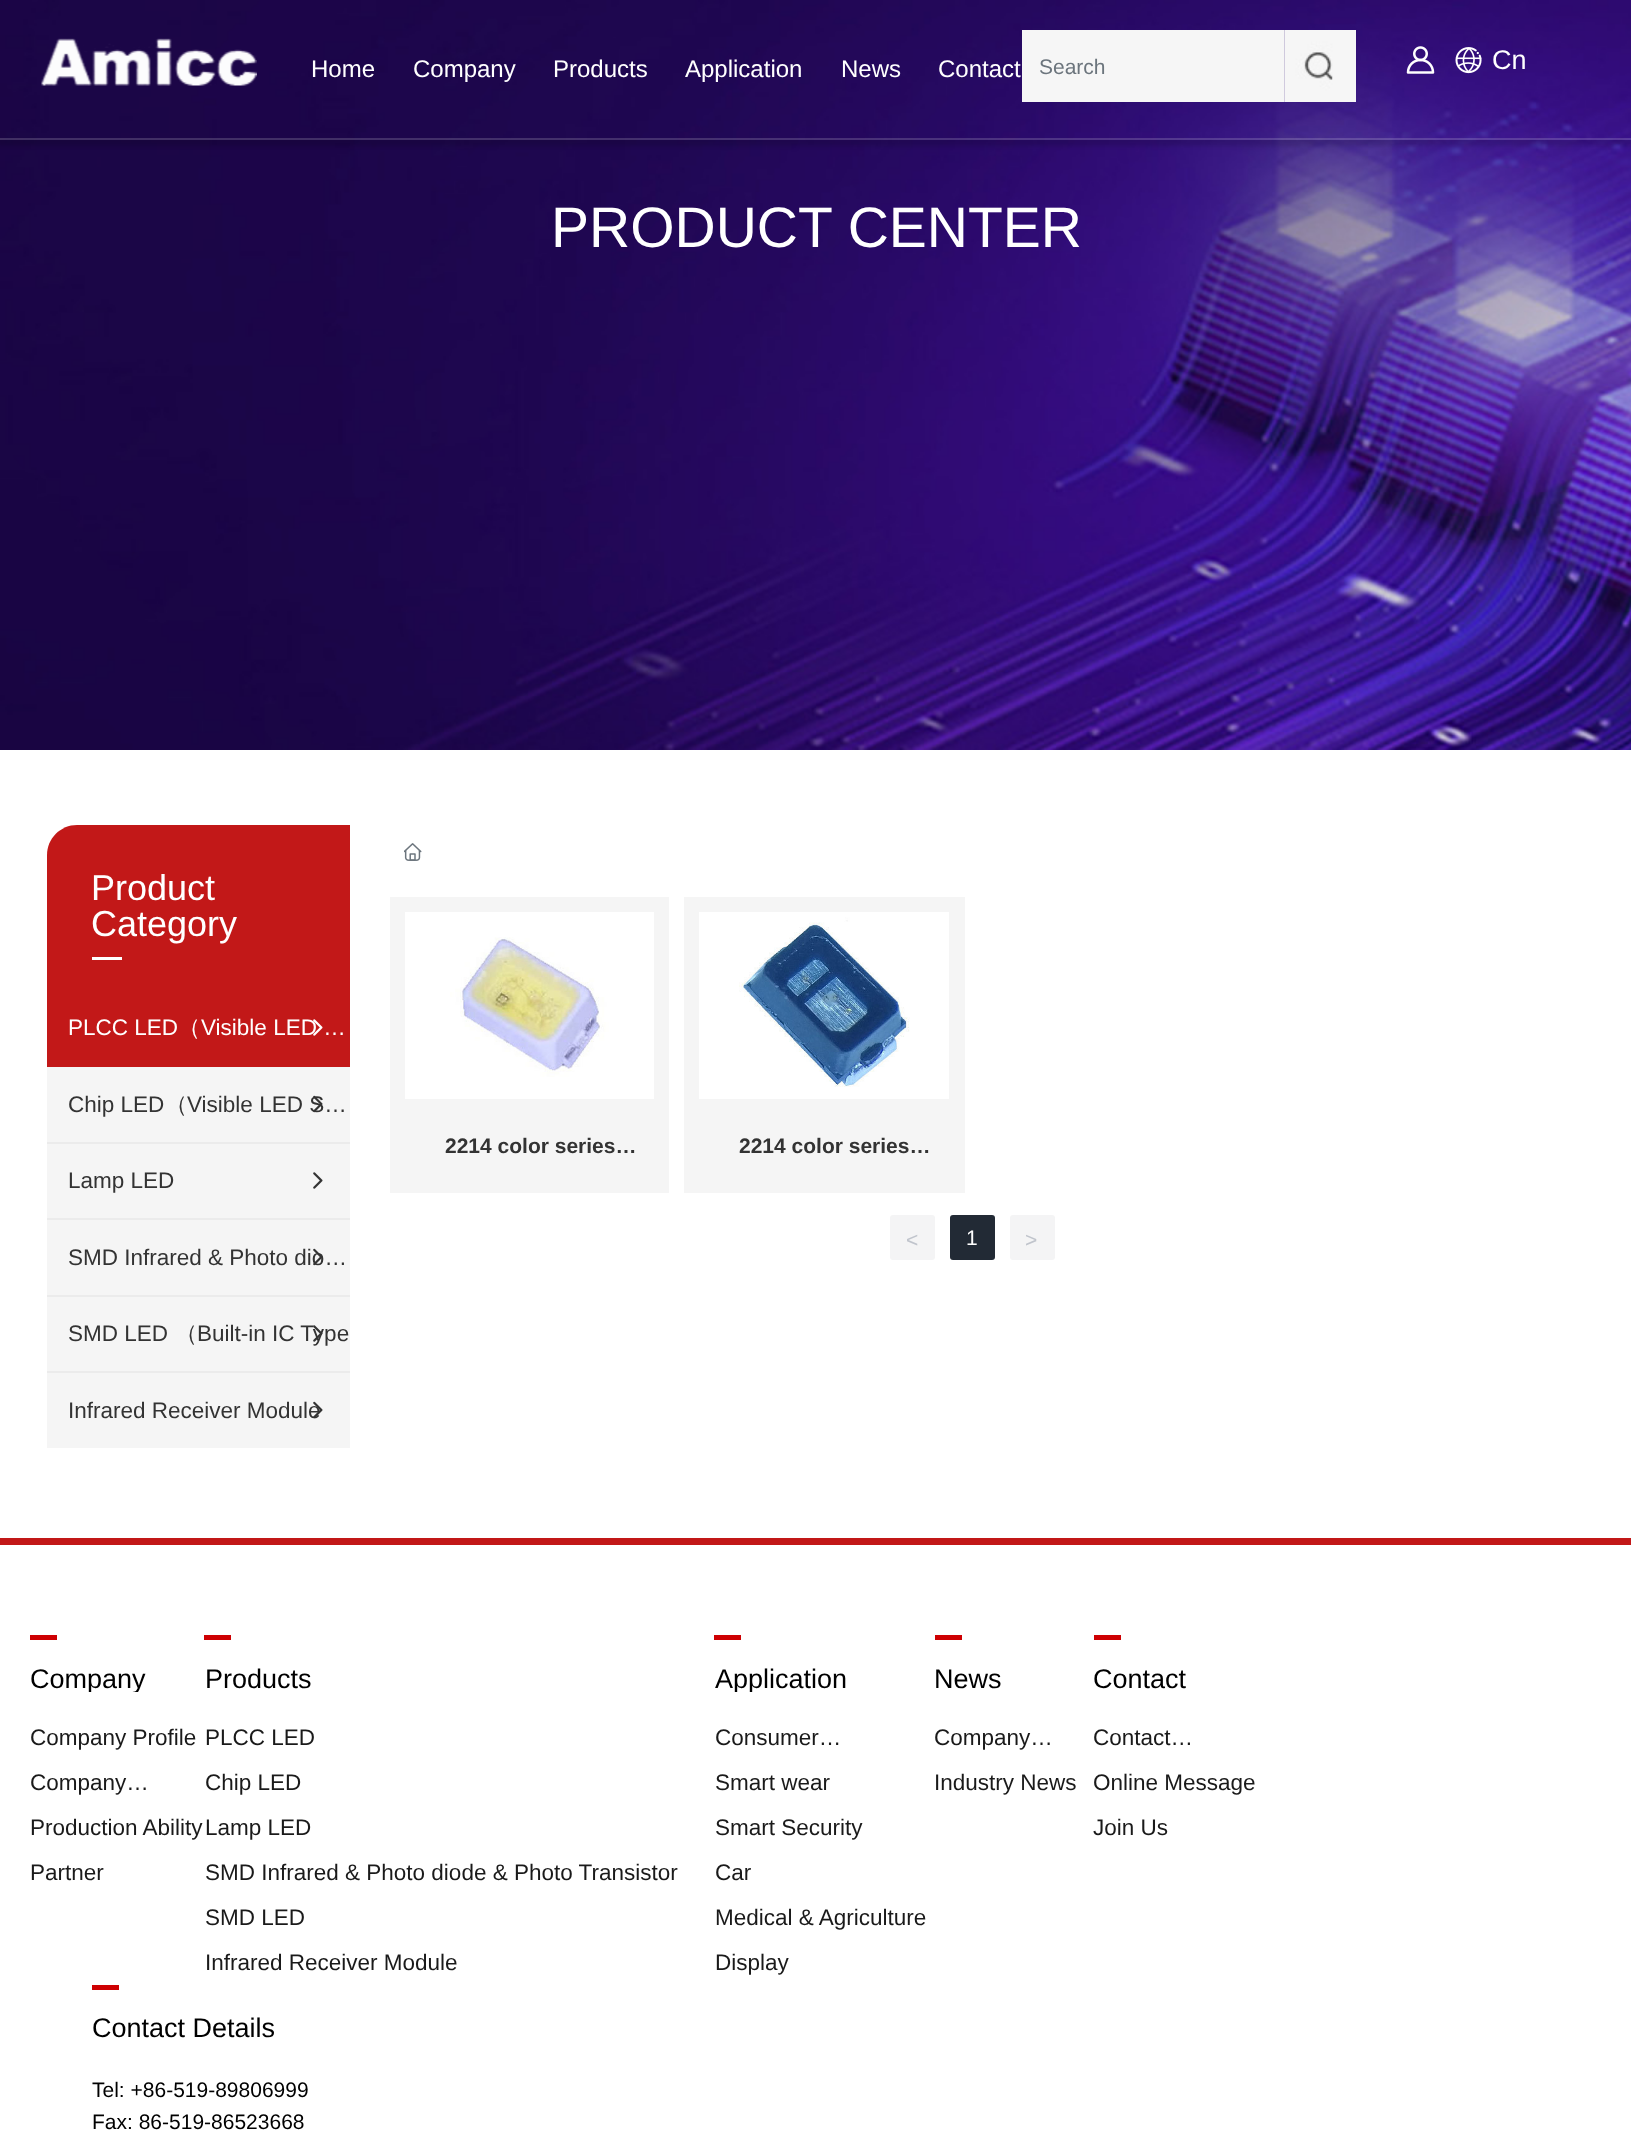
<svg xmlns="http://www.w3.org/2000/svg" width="1631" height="2130">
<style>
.a{font:24px Liberation Sans;fill:#fff}
.b{font:21px Liberation Sans;fill:#6c757d}
.c{font:27px Liberation Sans;fill:#fff}
.d{font:57px Liberation Sans;fill:#fff}
.e{font:36px Liberation Sans;fill:#fff}
.f{font:22.5px Liberation Sans;fill:#fff}
.g{font:500 22.5px WenQuanYi Zen Hei;fill:#fff}
.h{font:22.5px Liberation Sans;fill:#333}
.i{font:500 22.5px WenQuanYi Zen Hei;fill:#333}
.j{font:bold 21px Liberation Sans;fill:#333}
.k{font:21px Liberation Sans;fill:#c0c4cc}
.l{font:21px Liberation Sans;fill:#fff}
.m{font:27px Liberation Sans;fill:#000}
.n{font:22.5px Liberation Sans;fill:#1a1a1a}
.o{font:21px Liberation Sans;fill:#000}
</style>
<defs>
<clipPath id="clip1"><path d="M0 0h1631v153h-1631zm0 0h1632v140h-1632z" clip-rule="evenodd"/></clipPath>
<clipPath id="clip2"><path d="M30 1665h174v27H30z"/></clipPath>
<clipPath id="clip3"><path d="M714 1665h221v27H714z"/></clipPath>
</defs>
<rect width="100%" height="100%" fill="#fff"/>
<image href="5.png" x="0" y="0" width="1631" height="750"/>
<g clip-path="url(#clip1)">
<path fill="#00000021" filter="blur(2px)" d="M-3 -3h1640v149H-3z"/>
</g>
<path fill="#eeeeee2e" d="M0 138h1631v2H0z"/>
<image href="1.png" x="41" y="38" width="216" height="48"/>
<path fill="#f6f6f6" d="M1022 30h262v72H1022z"/>
<image href="2.png" x="1284" y="30" width="72" height="72"/>
<image href="3.png" x="1406" y="46" width="29" height="28"/>
<image href="4.png" x="1455" y="47" width="27" height="27"/>
<path fill="#c21818" d="M77 825h273v165h-303v-135c0-16.5 13.5-30 30-30z"/>
<path fill="#fff" d="M92 957h30v3H92z"/>
<path fill="#f5f5f5" d="M47 1067h303v381H47z"/>
<path fill="#c21818" d="M47 990h303v77H47z"/>
<path fill="#ebebeb" d="M47 1142h303v2H47z"/>
<path fill="#ebebeb" d="M47 1218h303v2H47z"/>
<image href="8.png" x="313" y="1172" width="10" height="17"/>
<path fill="#ebebeb" d="M47 1295h303v2H47z"/>
<path fill="#ebebeb" d="M47 1371h303v2H47z"/>
<image href="12.png" x="404" y="843" width="18" height="18"/>
<path fill="#f5f5f5" d="M390 897h279v296H390z"/>
<image href="13.png" x="405" y="912" width="249" height="187"/>
<path fill="#f5f5f5" d="M684 897h281v296H684z"/>
<image href="14.png" x="699" y="912" width="250" height="187"/>
<rect fill="#f4f4f5" stroke="#f4f4f5" stroke-width="2" x="891" y="1216" width="43" height="43" rx="2"/>
<rect fill="#222a35" x="950" y="1215" width="45" height="45" rx="3"/>
<rect fill="#f4f4f5" stroke="#f4f4f5" stroke-width="2" x="1011" y="1216" width="43" height="43" rx="2"/>
<path fill="#c21818" d="M0 1538h1631v7H0z"/>
<path fill="#ce0002" d="M30 1635h27v5H30z"/>
<path fill="#ce0002" d="M204 1635h27v5H204z"/>
<path fill="#ce0002" d="M714 1635h27v5H714z"/>
<path fill="#ce0002" d="M935 1635h27v5H935z"/>
<path fill="#ce0002" d="M1094 1635h27v5H1094z"/>
<path fill="#ce0002" d="M92 1985h27v5H92z"/>
<text class="a" x="311" y="77">Home</text>
<text class="a" x="413" y="77">Company</text>
<text class="a" x="553" y="77">Products</text>
<text class="a" x="685" y="77">Application</text>
<text class="a" x="841" y="77">News</text>
<text class="a" x="938" y="77">Contact</text>
<text class="b" x="1039" y="74">Search</text>
<text class="c" x="1492" y="69">Cn</text>
<text class="d" x="551" y="247">PRODUCT CENTER</text>
<text class="e" x="91" y="900">Product</text>
<text class="e" x="91" y="936">Category</text>
<text class="f" x="68" y="1035">PLCC LED</text>
<text class="g" x="178" y="1035">（</text>
<text class="f" x="201" y="1035">Visible LED …</text>
<image href="6.png" x="313" y="1019" width="10" height="17"/>
<text class="h" x="68" y="1112">Chip LED</text>
<text class="i" x="165" y="1112">（</text>
<text class="h" x="187" y="1112">Visible LED S…</text>
<image href="7.png" x="313" y="1095" width="10" height="18"/>
<text class="h" x="68" y="1188">Lamp LED</text>
<text class="h" x="68" y="1265">SMD Infrared &amp; Photo dio…</text>
<image href="9.png" x="313" y="1248" width="9" height="18"/>
<text class="h" x="68" y="1341">SMD LED</text>
<text class="i" x="175" y="1341">（</text>
<text class="h" x="197" y="1341">Built-in IC Type</text>
<image href="10.png" x="313" y="1325" width="10" height="17"/>
<text class="h" x="68" y="1418">Infrared Receiver Module</text>
<image href="11.png" x="313" y="1401" width="10" height="18"/>
<text class="j" x="445" y="1153">2214 color series…</text>
<text class="j" x="739" y="1153">2214 color series…</text>
<text class="k" x="906" y="1247">&lt;</text>
<text class="l" x="966" y="1245">1</text>
<text class="k" x="1025" y="1247">&gt;</text>
<g clip-path="url(#clip2)">
<text class="m" x="30" y="1688">Company</text>
</g>
<text class="n" x="30" y="1745">Company Profile</text>
<text class="n" x="30" y="1790">Company…</text>
<text class="n" x="30" y="1835">Production Ability</text>
<text class="n" x="30" y="1880">Partner</text>
<text class="m" x="205" y="1688">Products</text>
<text class="n" x="205" y="1745">PLCC LED</text>
<text class="n" x="205" y="1790">Chip LED</text>
<text class="n" x="205" y="1835">Lamp LED</text>
<text class="n" x="205" y="1880">SMD Infrared &amp; Photo diode &amp; Photo Transistor</text>
<text class="n" x="205" y="1925">SMD LED</text>
<text class="n" x="205" y="1970">Infrared Receiver Module</text>
<g clip-path="url(#clip3)">
<text class="m" x="715" y="1688">Application</text>
</g>
<text class="n" x="715" y="1745">Consumer…</text>
<text class="n" x="715" y="1790">Smart wear</text>
<text class="n" x="715" y="1835">Smart Security</text>
<text class="n" x="715" y="1880">Car</text>
<text class="n" x="715" y="1925">Medical &amp; Agriculture</text>
<text class="n" x="715" y="1970">Display</text>
<text class="m" x="934" y="1688">News</text>
<text class="n" x="934" y="1745">Company…</text>
<text class="n" x="934" y="1790">Industry News</text>
<text class="m" x="1093" y="1688">Contact</text>
<text class="n" x="1093" y="1745">Contact…</text>
<text class="n" x="1093" y="1790">Online Message</text>
<text class="n" x="1093" y="1835">Join Us</text>
<text class="m" x="92" y="2037">Contact Details</text>
<text class="o" x="92" y="2097">Tel: +86-519-89806999</text>
<text class="o" x="92" y="2129">Fax: 86-519-86523668</text>
</svg>
